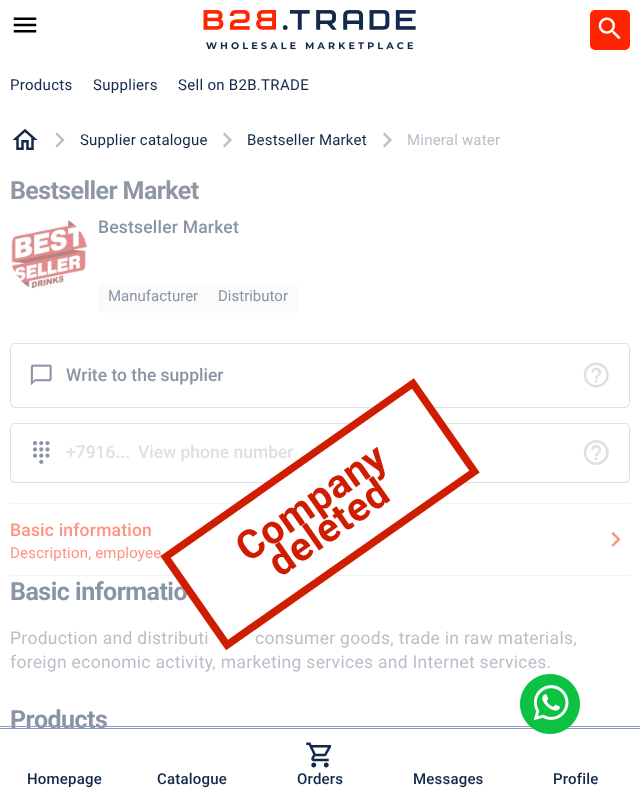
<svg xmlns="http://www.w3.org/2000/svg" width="640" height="797">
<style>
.a{font:15px Roboto;letter-spacing:0.3px;fill:#13294b}
.b{font:15px Roboto;letter-spacing:0.2px;fill:#13294b}
.c{font:15px Roboto;letter-spacing:0.2px;fill:#b9bfc9}
.d{font:bold 25px Roboto;letter-spacing:-0.6px;fill:#8f97a0}
.e{font:500 17.5px Roboto;letter-spacing:0.2px;fill:#8994a5}
.f{font:15px Roboto;fill:#8994a5}
.g{font:500 17.5px Roboto;fill:#8994a5}
.h{font:500 17.5px Roboto;fill:#dcdfe4}
.i{font:500 17.5px Roboto;letter-spacing:0.2px;fill:#ff9281}
.j{font:15px Roboto;letter-spacing:0.2px;fill:#ff9281}
.k{font:bold 25px Roboto;letter-spacing:-0.5px;fill:#8994a5}
.l{font:17.5px Roboto;letter-spacing:0.3px;fill:#b9bfc9}
.m{font:bold 40px Roboto;letter-spacing:0.5px;fill:#cf1d02}
.n{font:500 15px Roboto;letter-spacing:0.2px;fill:#13294b}
</style>
<rect width="100%" height="100%" fill="#fff"/>
<image href="1.png" x="13" y="17" width="24" height="16"/>
<image href="2.png" x="203" y="10" width="213" height="40"/>
<rect fill="#ff2402" x="590" y="10" width="40" height="40" rx="5"/>
<image href="3.png" x="598" y="17" width="23" height="23"/>
<image href="4.png" x="12" y="128" width="26" height="22"/>
<image href="5.png" x="55" y="132" width="10" height="16"/>
<image href="6.png" x="223" y="132" width="9" height="16"/>
<image href="6.png" x="383" y="132" width="9" height="16"/>
<image href="7.png" x="11" y="220" width="76" height="69"/>
<rect fill="#fbfbfc" x="98" y="283" width="110" height="30" rx="5"/>
<rect fill="#fbfbfc" x="208" y="283" width="90" height="30" rx="5"/>
<rect fill="none" stroke="#dcdfe4" x="10.5" y="343.5" width="619" height="64" rx="4.5"/>
<image href="8.png" x="30" y="364" width="22" height="22"/>
<image href="9.png" x="583" y="362" width="26" height="26"/>
<rect fill="none" stroke="#dcdfe4" x="10.5" y="423.5" width="619" height="59" rx="4.5"/>
<image href="10.png" x="32" y="441" width="18" height="23"/>
<image href="11.png" x="583" y="440" width="26" height="25"/>
<path fill="#f1f2f4" d="M10 503h620v1H10z"/>
<path fill="#f1f2f4" d="M10 575h620v1H10z"/>
<image href="12.png" x="611" y="532" width="10" height="15"/>
<image href="14.png" x="306" y="742" width="26" height="26"/>
<text class="a" x="10" y="90">Products</text>
<text class="a" x="93" y="90">Suppliers</text>
<text class="a" x="178" y="90">Sell on B2B.TRADE</text>
<text class="b" x="80" y="145">Supplier catalogue</text>
<text class="b" x="247" y="145">Bestseller Market</text>
<text class="c" x="407" y="145">Mineral water</text>
<text class="d" x="10" y="199">Bestseller Market</text>
<text class="e" x="98" y="233">Bestseller Market</text>
<text class="f" x="108" y="301">Manufacturer</text>
<text class="f" x="218" y="301">Distributor</text>
<text class="g" x="66" y="381">Write to the supplier</text>
<text class="h" x="66" y="458">+7916...</text>
<text class="h" x="138" y="458">View phone number</text>
<text class="i" x="10" y="536">Basic information</text>
<text class="j" x="10" y="558">Description, employee</text>
<text class="k" x="10" y="600">Basic informatio</text>
<text class="l" x="10" y="644">Production and distributi</text>
<text class="l" x="255" y="644">consumer goods, trade in raw materials,</text>
<path fill="#fff" d="M160 556l254-178l66 95l-254 177z"/>
<path fill="none" stroke="#cf1d02" stroke-width="7.5" d="M165.5 557l247.5-173.5l61.5 88l-247.5 173.5z"/>
<text class="m" x="248" y="563" transform="rotate(-35 248 563)">Company</text>
<text class="m" x="280" y="578" transform="rotate(-35 280 578)">deleted</text>
<text class="l" x="10" y="668">foreign economic activity, marketing services and Internet services.</text>
<text class="k" x="10" y="728">Products</text>
<path fill="#8d9cbd" d="M0 726h640v1H0z"/>
<path fill="#8d9cbd" d="M0 728h640v1H0z"/>
<image href="13.png" x="520" y="674" width="60" height="60"/>
<text class="n" x="27" y="784">Homepage</text>
<text class="n" x="157" y="784">Catalogue</text>
<text class="n" x="297" y="784">Orders</text>
<text class="n" x="413" y="784">Messages</text>
<text class="n" x="553" y="784">Profile</text>
</svg>
